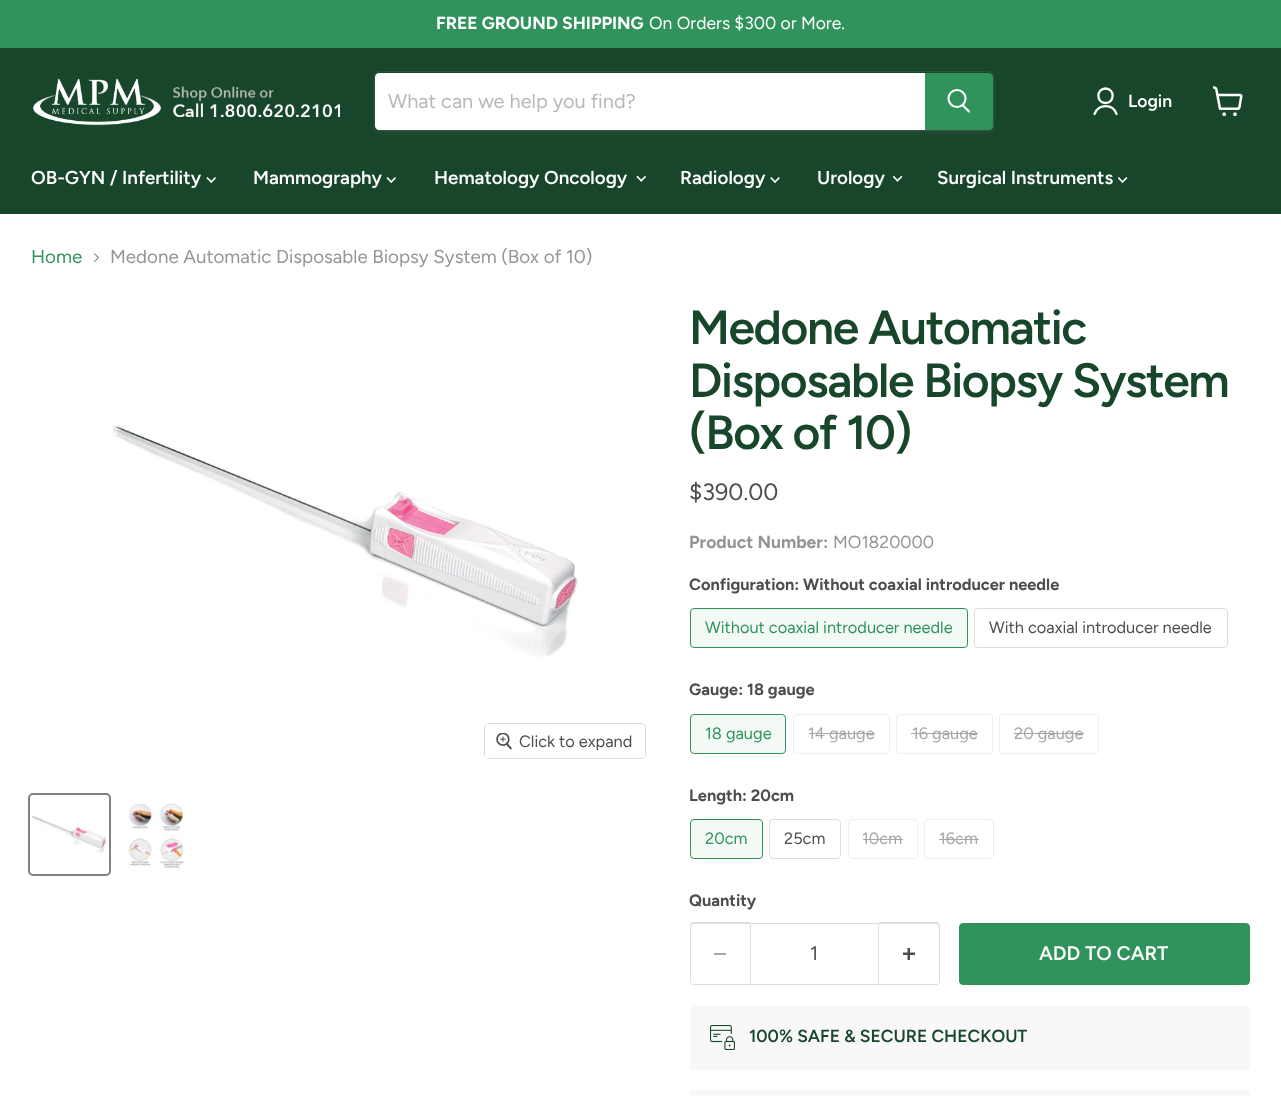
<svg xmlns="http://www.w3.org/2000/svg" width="1281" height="1096">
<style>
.a{font:bold 17.5px Figtree;fill:#fff}
.b{font:17.5px Figtree;fill:#fff}
.c{font:20px Figtree;fill:#b8b8b8}
.d{font:600 17.5px Figtree;fill:#fff}
.e{font:600 18.75px Figtree;fill:#fff}
.f{font:18.75px Figtree;fill:#2f935b}
.g{font:18.75px Figtree;fill:#949494}
.h{font:16.4px Figtree;fill:#4d4d4d}
.i{font:600 48px Figtree;letter-spacing:-1.4px;fill:#17462b}
.j{font:23.5px Figtree;fill:#4d4d4d}
.k{font:bold 17.5px Figtree;fill:#949494}
.l{font:17.5px Figtree;fill:#949494}
.m{font:bold 16.4px Figtree;fill:#4d4d4d}
.n{font:16.4px Figtree;fill:#2f935b}
.o{font:16.4px Figtree;fill:#a6a6a6}
.p{font:19.75px Figtree;fill:#4d4d4d}
.q{font:600 19.75px Figtree;fill:#fff}
.r{font:600 17.5px Figtree;fill:#17462b}
</style>
<rect width="100%" height="100%" fill="#fff"/>
<path fill="#2f935b" d="M0 0h1281v48H0z"/>
<path fill="#17462b" d="M0 48h1281v166H0z"/>
<image href="1.png" x="33" y="78" width="307" height="48"/>
<rect fill="#8080801c" filter="blur(2px)" x="374" y="74" width="620" height="60" rx="5"/>
<rect fill="none" stroke="#80808033" x="374.5" y="71.5" width="619" height="59" rx="4.5"/>
<path fill="#fff" d="M379 73h546v57h-546c-2 0-4-2-4-4v-49c0-2 2-4 4-4z"/>
<path fill="#2f935b" stroke="#2f935b" d="M925.5 73.5h63.5c2 0 3.5 1.5 3.5 3.5v49c0 2-1.5 3.5-3.5 3.5h-63.5z"/>
<path fill="none" stroke="#fff" stroke-width="2.2" stroke-linecap="round" d="M969 111.5l-6-6"/>
<circle fill="none" stroke="#fff" stroke-width="2.2" cx="957" cy="98.5" r="8.5"/>
<path fill="none" stroke="#fff" stroke-width="2.3" stroke-linecap="round" stroke-linejoin="round" d="M1105.5 103c9.5 0 9.5-14.5 0-14.5c-9.5 0-9.5 14.5 0 14.5zm11 11c-3.5-10.5-18-10.5-22 0"/>
<image href="2.png" x="1213" y="86" width="30" height="30"/>
<image href="3.png" x="206" y="177" width="10" height="6"/>
<image href="3.png" x="386" y="177" width="10" height="6"/>
<image href="4.png" x="636" y="175" width="10" height="7"/>
<image href="5.png" x="770" y="177" width="10" height="6"/>
<image href="6.png" x="893" y="175" width="10" height="7"/>
<image href="7.png" x="1118" y="177" width="10" height="6"/>
<image href="8.png" x="93" y="253" width="6" height="10"/>
<image href="9.png" x="111" y="424" width="467" height="233"/>
<rect fill="none" stroke="#d9d9d9" x="484.5" y="723.5" width="161" height="35" rx="4.5"/>
<rect fill="#ffffffe6" x="485" y="724" width="160" height="34" rx="4"/>
<image href="10.png" x="496" y="733" width="16" height="17"/>
<rect fill="none" stroke="#818181" stroke-width="2" x="29" y="794" width="81" height="81" rx="4"/>
<image href="11.png" x="31" y="816" width="76" height="37"/>
<image href="12.png" x="127" y="803" width="57" height="66"/>
<rect fill="#f3f9f5" stroke="#2f935b" x="690.5" y="608.5" width="277" height="39" rx="3.5"/>
<rect fill="none" stroke="#ddd" x="974.5" y="608.5" width="253" height="39" rx="3.5"/>
<rect fill="#f3f9f5" stroke="#2f935b" x="690.5" y="714.5" width="95" height="39" rx="3.5"/>
<rect fill="none" stroke="#eee" x="793.5" y="714.5" width="96" height="39" rx="3.5"/>
<path fill="#a6a6a6" d="M809 733h66v1H809z"/>
<rect fill="none" stroke="#eee" x="896.5" y="714.5" width="96" height="39" rx="3.5"/>
<path fill="#a6a6a6" d="M911 733h67v1H911z"/>
<rect fill="none" stroke="#eee" x="999.5" y="714.5" width="99" height="39" rx="3.5"/>
<path fill="#a6a6a6" d="M1014 733h70v1H1014z"/>
<rect fill="#f3f9f5" stroke="#2f935b" x="690.5" y="819.5" width="72" height="39" rx="3.5"/>
<rect fill="none" stroke="#ddd" x="769.5" y="819.5" width="71" height="39" rx="3.5"/>
<rect fill="none" stroke="#eee" x="848.5" y="819.5" width="69" height="39" rx="3.5"/>
<path fill="#a6a6a6" d="M863 839h40v1H863z"/>
<rect fill="none" stroke="#eee" x="924.5" y="819.5" width="69" height="39" rx="3.5"/>
<path fill="#a6a6a6" d="M939 839h40v1H939z"/>
<path fill="#ddd" fill-rule="evenodd" d="M694 922h56v63h-56c-2 0-4-2-4-4v-55c0-2 2-4 4-4zm0 2h56v60h-56c-2 0-3-1-3-3v-55c0-1 1-2 3-2z"/>
<path fill="#a6a6a6" d="M714 953h12v2H714z"/>
<path fill="none" stroke="#ddd" d="M750.5 923.5h128v61H750.5z"/>
<path fill="#ddd" fill-rule="evenodd" d="M879 922h57c2 0 4 2 4 4v55c0 2-2 4-4 4h-57zm0 2h57c2 0 3 1 3 2v55c0 2-1 3-3 3h-57z"/>
<image href="13.png" x="903" y="948" width="12" height="12"/>
<rect fill="#2f935b" stroke="#2f935b" x="959.5" y="923.5" width="290" height="61" rx="3.5"/>
<rect fill="#f8f8f8" x="690" y="1005" width="560" height="65" rx="4"/>
<image href="14.png" x="710" y="1025" width="25" height="25"/>
<rect fill="#f8f8f8" x="690" y="1090" width="560" height="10" rx="4"/>
<text class="a" x="436" y="29">FREE GROUND SHIPPING</text>
<text class="b" x="649" y="29">On Orders $300 or More.</text>
<text class="c" x="388" y="108">What can we help you find?</text>
<text class="d" x="1128" y="107">Login</text>
<text class="e" x="31" y="184">OB-GYN / Infertility</text>
<text class="e" x="253" y="184">Mammography</text>
<text class="e" x="434" y="184">Hematology Oncology</text>
<text class="e" x="680" y="184">Radiology</text>
<text class="e" x="817" y="184">Urology</text>
<text class="e" x="937" y="184">Surgical Instruments</text>
<text class="f" x="31" y="263">Home</text>
<text class="g" x="110" y="263">Medone Automatic Disposable Biopsy System (Box of 10)</text>
<text class="h" x="519" y="747">Click to expand</text>
<text class="i" x="689" y="344">Medone Automatic</text>
<text class="i" x="689" y="397">Disposable Biopsy System</text>
<text class="i" x="689" y="449">(Box of 10)</text>
<text class="j" x="689" y="500">$390.00</text>
<text class="k" x="689" y="548">Product Number:</text>
<text class="l" x="833" y="548">MO1820000</text>
<text class="m" x="689" y="590">Configuration: Without coaxial introducer needle</text>
<text class="n" x="705" y="633">Without coaxial introducer needle</text>
<text class="h" x="989" y="633">With coaxial introducer needle</text>
<text class="m" x="689" y="695">Gauge: 18 gauge</text>
<text class="n" x="705" y="739">18 gauge</text>
<text class="o" x="808" y="739">14 gauge</text>
<text class="o" x="912" y="739">16 gauge</text>
<text class="o" x="1014" y="739">20 gauge</text>
<text class="m" x="689" y="801">Length: 20cm</text>
<text class="n" x="705" y="844">20cm</text>
<text class="h" x="784" y="844">25cm</text>
<text class="o" x="862" y="844">10cm</text>
<text class="o" x="939" y="844">16cm</text>
<text class="m" x="689" y="906">Quantity</text>
<text class="p" x="810" y="960">1</text>
<text class="q" x="1039" y="960">ADD TO CART</text>
<text class="r" x="749" y="1042">100% SAFE &amp; SECURE CHECKOUT</text>
</svg>
